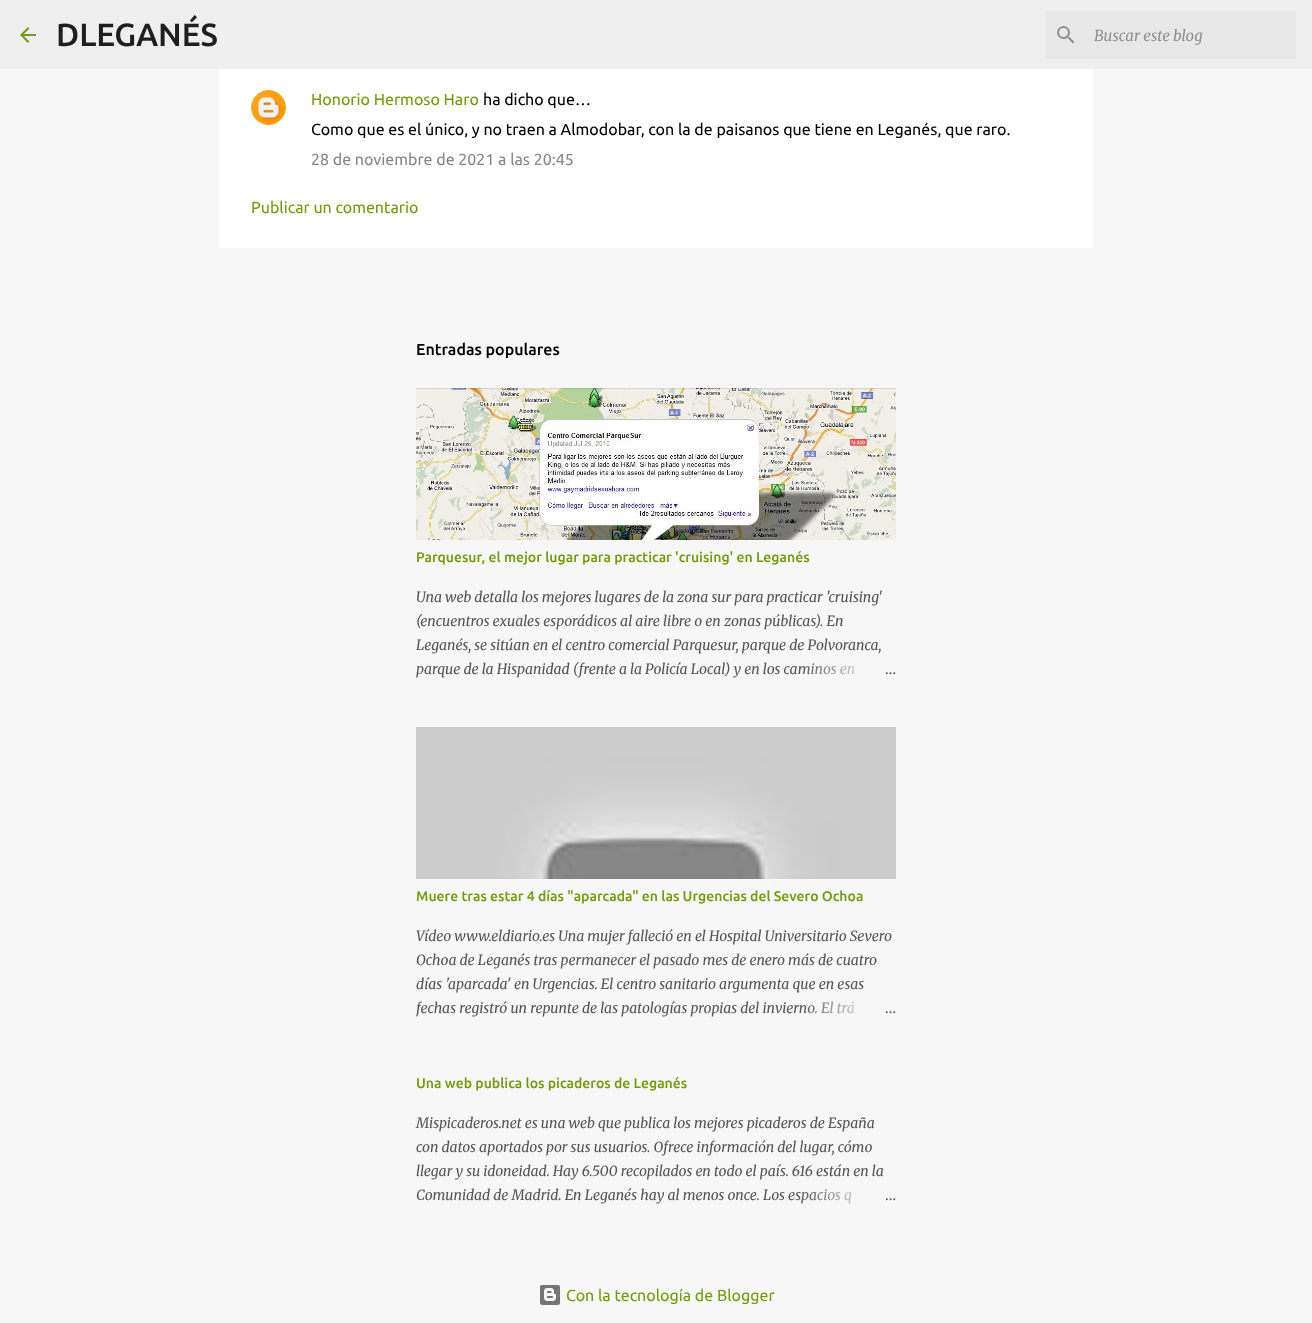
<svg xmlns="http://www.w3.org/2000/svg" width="1312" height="1323">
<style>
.a{font:500 32px Ubuntu;fill:#1f1f1f}
.b{font:italic 15px Merriweather;fill:#909090}
.c{font:16px Ubuntu;fill:#729c0b}
.d{font:16px Ubuntu;fill:#000}
.e{font:16px Ubuntu;fill:#878787}
.f{font:500 16px Ubuntu;fill:#000}
.g{font:500 14px Ubuntu;fill:#729c0b}
.h{font:italic 14px Merriweather;fill:#535353}
.i{font:300 14px Merriweather;fill:#535353}
</style>
<defs>
<linearGradient id="g1" gradientUnits="userSpaceOnUse" x1="896" y1="669" x2="800" y2="669"><stop offset="0" stop-color="#f7f7f7"/><stop offset="0.2" stop-color="#f7f7f7"/><stop offset="1" stop-color="#f7f7f7" stop-opacity="0"/></linearGradient>
<clipPath id="clip1"><path d="M416 924h480v96H416z"/></clipPath>
<linearGradient id="g2" gradientUnits="userSpaceOnUse" x1="896" y1="1008" x2="800" y2="1008"><stop offset="0" stop-color="#f7f7f7"/><stop offset="0.2" stop-color="#f7f7f7"/><stop offset="1" stop-color="#f7f7f7" stop-opacity="0"/></linearGradient>
<linearGradient id="g3" gradientUnits="userSpaceOnUse" x1="896" y1="1195" x2="800" y2="1195"><stop offset="0" stop-color="#f7f7f7"/><stop offset="0.2" stop-color="#f7f7f7"/><stop offset="1" stop-color="#f7f7f7" stop-opacity="0"/></linearGradient>
</defs>
<rect width="100%" height="100%" fill="#f7f7f7"/>
<path fill="#efefef" d="M0 0h1312v69H0z"/>
<image href="1.png" x="20" y="27" width="16" height="16"/>
<path fill="#e8e8e8" d="M1046 11h250v48H1046z"/>
<image href="2.png" x="1057" y="26" width="18" height="18"/>
<path fill="#fff" d="M219 69h874v179H219z"/>
<image href="3.png" x="251" y="90" width="35" height="35"/>
<image href="4.png" x="416" y="388" width="480" height="152"/>
<image href="5.png" x="416" y="727" width="480" height="152"/>
<image href="6.png" x="540" y="1285" width="20" height="20"/>
<text class="a" x="56" y="46">DLEGANÉS</text>
<text class="b" x="1094" y="41">Buscar este blog</text>
<text class="c" x="311" y="105">Honorio Hermoso Haro</text>
<text class="d" x="483" y="105">ha dicho que…</text>
<text class="d" x="311" y="135">Como que es el único, y no traen a Almodobar, con la de paisanos que tiene en Leganés, que raro.</text>
<text class="e" x="311" y="165">28 de noviembre de 2021 a las 20:45</text>
<text class="c" x="251" y="213">Publicar un comentario</text>
<text class="f" x="416" y="355">Entradas populares</text>
<text class="g" x="416" y="562">Parquesur, el mejor lugar para practicar 'cruising' en Leganés</text>
<text class="h" x="416" y="602">Una web detalla los mejores lugares de la zona sur para practicar 'cruising'</text>
<text class="h" x="416" y="626">(encuentros exuales esporádicos al aire libre o en zonas públicas). En</text>
<text class="h" x="416" y="650">Leganés, se sitúan en el centro comercial Parquesur, parque de Polvoranca,</text>
<text class="h" x="416" y="674">parque de la Hispanidad (frente a la Policía Local) y en los caminos en</text>
<path fill="url(#g1)" d="M802 663h53v12H802z"/>
<text class="i" x="885" y="674">…</text>
<text class="g" x="416" y="901">Muere tras estar 4 días "aparcada" en las Urgencias del Severo Ochoa</text>
<text class="h" x="416" y="941">Vídeo www.eldiario.es Una mujer falleció en el Hospital Universitario Severo</text>
<text class="h" x="416" y="965">Ochoa de Leganés tras permanecer el pasado mes de enero más de cuatro</text>
<text class="h" x="416" y="989">días 'aparcada' en Urgencias. El centro sanitario argumenta que en esas</text>
<g clip-path="url(#clip1)">
<text class="h" x="416" y="1013">fechas registró un repunte de las patologías propias del invierno.</text>
</g>
<text class="h" x="821" y="1013">El trá</text>
<path fill="url(#g2)" d="M802 1001h53v13H802z"/>
<text class="i" x="885" y="1013">…</text>
<text class="g" x="416" y="1088">Una web publica los picaderos de Leganés</text>
<text class="h" x="416" y="1128">Mispicaderos.net es una web que publica los mejores picaderos de España</text>
<text class="h" x="416" y="1152">con datos aportados por sus usuarios. Ofrece información del lugar, cómo</text>
<text class="h" x="416" y="1176">llegar y su idoneidad. Hay 6.500 recopilados en todo el país. 616 están en la</text>
<text class="h" x="416" y="1200">Comunidad de Madrid. En Leganés hay al menos once. Los espacios q</text>
<path fill="url(#g3)" d="M802 1189h50v15H802z"/>
<text class="i" x="885" y="1200">…</text>
<text class="c" x="566" y="1301">Con la tecnología de Blogger</text>
</svg>
